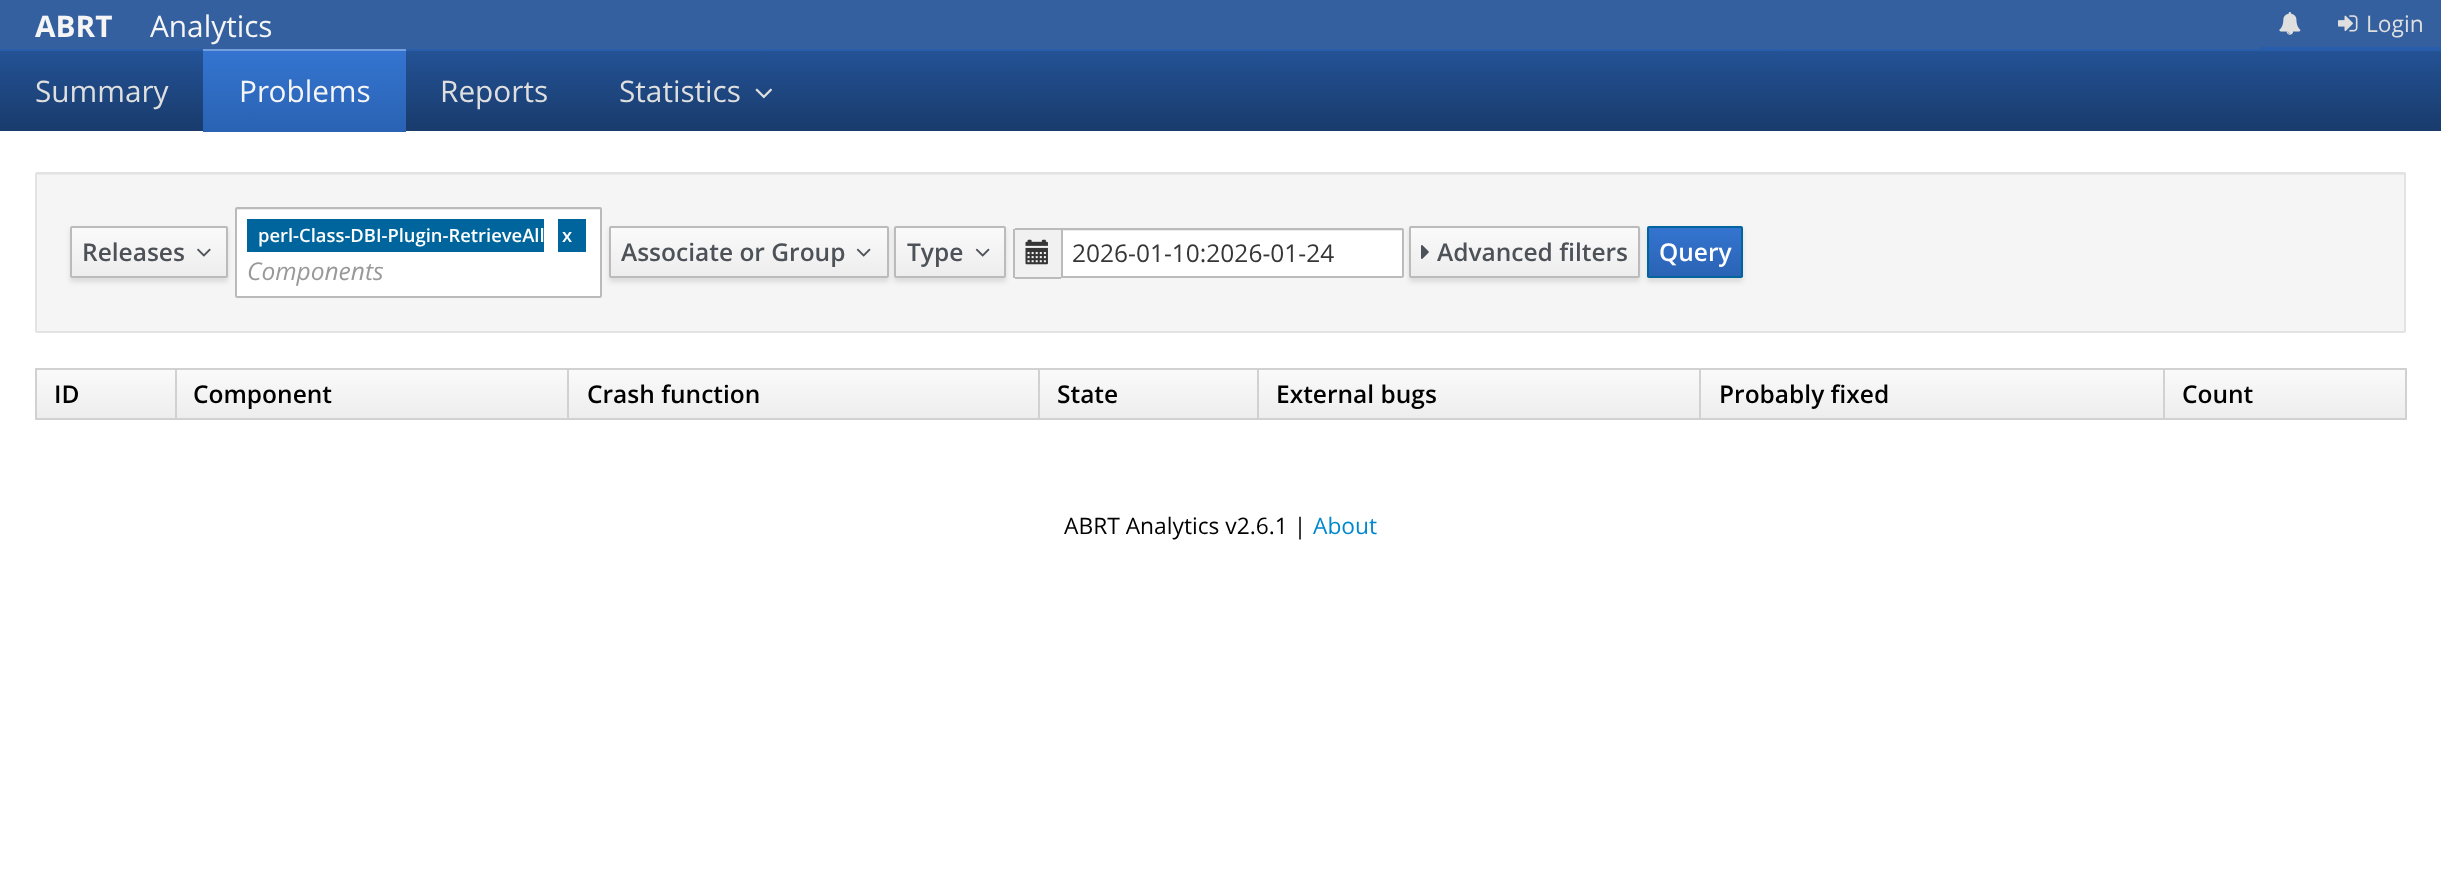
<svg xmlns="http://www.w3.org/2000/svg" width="2441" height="893">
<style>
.a{font:bold 29.75px Open Sans;fill:#f5f5f5}
.b{font:29.75px Open Sans;fill:#f5f5f5}
.c{font:22.75px Open Sans;fill:#dfdfdf}
.d{font:29.75px Open Sans;fill:#dfdfdf}
.e{font:600 24.5px Open Sans;fill:#4d5258}
.f{font:600 18.4px Open Sans;fill:#fff}
.g{font:italic 24.5px Open Sans;fill:#999}
.h{font:24.5px Open Sans;fill:#363636}
.i{font:600 24.5px Open Sans;fill:#fff}
.j{font:600 24.5px Open Sans;fill:#000}
.k{font:22.75px Open Sans;fill:#000}
.l{font:22.75px Open Sans;fill:#0088ce}
</style>
<defs>
<linearGradient id="g1" gradientUnits="userSpaceOnUse" x1="1221" y1="51" x2="1221" y2="131"><stop offset="0" stop-color="#235295"/><stop offset="1" stop-color="#193b6c"/></linearGradient>
<linearGradient id="g2" gradientUnits="userSpaceOnUse" x1="305" y1="51" x2="305" y2="130"><stop offset="0" stop-color="#3474d0"/><stop offset="1" stop-color="#2a63b4"/></linearGradient>
<linearGradient id="g3" gradientUnits="userSpaceOnUse" x1="149" y1="228" x2="149" y2="277"><stop offset="0" stop-color="#fafafa"/><stop offset="1" stop-color="#ededed"/></linearGradient>
<linearGradient id="g4" gradientUnits="userSpaceOnUse" x1="749" y1="228" x2="749" y2="277"><stop offset="0" stop-color="#fafafa"/><stop offset="1" stop-color="#ededed"/></linearGradient>
<linearGradient id="g5" gradientUnits="userSpaceOnUse" x1="950" y1="228" x2="950" y2="277"><stop offset="0" stop-color="#fafafa"/><stop offset="1" stop-color="#ededed"/></linearGradient>
<linearGradient id="g6" gradientUnits="userSpaceOnUse" x1="1524" y1="228" x2="1524" y2="277"><stop offset="0" stop-color="#fafafa"/><stop offset="1" stop-color="#ededed"/></linearGradient>
<linearGradient id="g7" gradientUnits="userSpaceOnUse" x1="1695" y1="228" x2="1695" y2="277"><stop offset="0" stop-color="#3474d0"/><stop offset="1" stop-color="#2a63b4"/></linearGradient>
<linearGradient id="g8" gradientUnits="userSpaceOnUse" x1="1222" y1="369" x2="1222" y2="420"><stop offset="0" stop-color="#fafafa"/><stop offset="1" stop-color="#ededed"/></linearGradient>
</defs>
<rect width="100%" height="100%" fill="#fff"/>
<path fill="#34609f" d="M0 0h2441v49H0z"/>
<path fill="#275daa" d="M0 49h2441v2H0z"/>
<path fill="#275daa" d="M2261 47h180v2H2261z"/>
<image href="1.png" x="2279" y="12" width="22" height="23"/>
<image href="2.png" x="2338" y="15" width="20" height="17"/>
<path fill="url(#g1)" d="M0 51h2441v80H0z"/>
<path fill="url(#g2)" d="M203 51h203v79H203z"/>
<path fill="#739fde" d="M203 49h203v2H203z"/>
<path fill="#2a63b4" d="M203 130h203v2H203z"/>
<image href="3.png" x="755" y="88" width="17" height="11"/>
<rect fill="#f5f5f5" x="35" y="172" width="2371" height="161" rx="2"/>
<path fill="#e9e9e9" d="M37 174h2368v1H37z"/>
<rect fill="none" stroke="#e3e3e3" stroke-width="2" x="36" y="173" width="2369" height="159" rx="1"/>
<rect fill="#0303031a" filter="blur(2.5px)" x="70" y="229" width="158" height="53" rx="2"/>
<path fill="url(#g3)" d="M70 228h158v49H70z"/>
<rect fill="none" stroke="#bbb" stroke-width="2" x="71" y="227" width="156" height="50" rx="1"/>
<image href="4.png" x="197" y="248" width="14" height="9"/>
<rect fill="#fff" x="235" y="207" width="367" height="91" rx="2"/>
<path fill="#ececec" d="M236 209h364v1H236z"/>
<rect fill="none" stroke="#bababa" stroke-width="2" x="236" y="208" width="365" height="89" rx="1"/>
<path fill="#00659c" d="M247 219h297v33H247z"/>
<path fill="#00659c" d="M558 219h28v33H558z"/>
<rect fill="#0303031a" filter="blur(2.5px)" x="609" y="229" width="280" height="53" rx="2"/>
<path fill="url(#g4)" d="M609 228h280v49H609z"/>
<rect fill="none" stroke="#bbb" stroke-width="2" x="610" y="227" width="278" height="50" rx="1"/>
<image href="5.png" x="856" y="248" width="15" height="9"/>
<rect fill="#0303031a" filter="blur(2.5px)" x="894" y="229" width="112" height="53" rx="2"/>
<path fill="url(#g5)" d="M894 228h112v49H894z"/>
<rect fill="none" stroke="#bbb" stroke-width="2" x="895" y="227" width="110" height="50" rx="1"/>
<image href="5.png" x="975" y="248" width="15" height="9"/>
<path fill="#f1f1f1" d="M1015 228h46v50h-46c-1 0-2-1-2-2v-46c0-1 1-2 2-2z"/>
<path fill="#bbb" d="M1015 228h46v2H1015z"/>
<path fill="#bbb" d="M1015 277h46v2H1015z"/>
<path fill="#bbb" d="M1013 229h2v49H1013z"/>
<image href="6.png" x="1025" y="239" width="23" height="26"/>
<rect fill="#0303031a" filter="blur(2.5px)" x="1409" y="229" width="231" height="53" rx="2"/>
<path fill="#fff" d="M1061 228h341c1 0 2 1 2 2v46c0 1-1 2-2 2h-341z"/>
<path fill="#ececec" d="M1062 230h340v1H1062z"/>
<path fill="none" stroke="#bbb" stroke-width="2" d="M1062 229h340c.5 0 1 .5 1 1v46c0 .5-.5 1-1 1h-340z"/>
<path fill="url(#g6)" d="M1409 228h231v49H1409z"/>
<rect fill="none" stroke="#bbb" stroke-width="2" x="1410" y="227" width="229" height="50" rx="1"/>
<image href="7.png" x="1421" y="245" width="8" height="14"/>
<rect fill="#0303031a" filter="blur(2.5px)" x="1647" y="229" width="96" height="53" rx="2"/>
<path fill="url(#g7)" d="M1647 228h96v49H1647z"/>
<rect fill="none" stroke="#00659c" stroke-width="2" x="1648" y="227" width="94" height="50" rx="1"/>
<path fill="#d1d1d1" d="M35 368h2371v2H35z"/>
<path fill="#d1d1d1" d="M2405 368h2v52H2405z"/>
<path fill="#d1d1d1" d="M35 418h2371v2H35z"/>
<path fill="#d1d1d1" d="M35 368h2v52H35z"/>
<path fill="url(#g8)" d="M37 370h2368v48H37z"/>
<path fill="#d1d1d1" d="M175 368h2v52H175z"/>
<path fill="#d1d1d1" d="M567 368h2v52H567z"/>
<path fill="#d1d1d1" d="M1038 368h2v52H1038z"/>
<path fill="#d1d1d1" d="M1257 368h2v52H1257z"/>
<path fill="#d1d1d1" d="M1699 368h2v52H1699z"/>
<path fill="#d1d1d1" d="M2163 368h2v52H2163z"/>
<text class="a" x="35" y="37">ABRT</text>
<text class="b" x="150" y="37">Analytics</text>
<text class="c" x="2366" y="32">Login</text>
<text class="d" x="35" y="102">Summary</text>
<text class="b" x="239" y="102">Problems</text>
<text class="d" x="440" y="102">Reports</text>
<text class="d" x="619" y="102">Statistics</text>
<text class="e" x="82" y="261">Releases</text>
<text class="f" x="258" y="242">perl-Class-DBI-Plugin-RetrieveAll</text>
<text class="f" x="562" y="242">x</text>
<text class="g" x="247" y="280">Components</text>
<text class="e" x="621" y="261">Associate or Group</text>
<text class="e" x="907" y="261">Type</text>
<text class="h" x="1072" y="262">2026-01-10:2026-01-24</text>
<text class="e" x="1437" y="261">Advanced filters</text>
<text class="i" x="1659" y="261">Query</text>
<text class="j" x="54" y="403">ID</text>
<text class="j" x="193" y="403">Component</text>
<text class="j" x="587" y="403">Crash function</text>
<text class="j" x="1057" y="403">State</text>
<text class="j" x="1276" y="403">External bugs</text>
<text class="j" x="1719" y="403">Probably fixed</text>
<text class="j" x="2182" y="403">Count</text>
<text class="k" x="1064" y="534">ABRT Analytics v2.6.1 |</text>
<text class="l" x="1313" y="534">About</text>
</svg>
